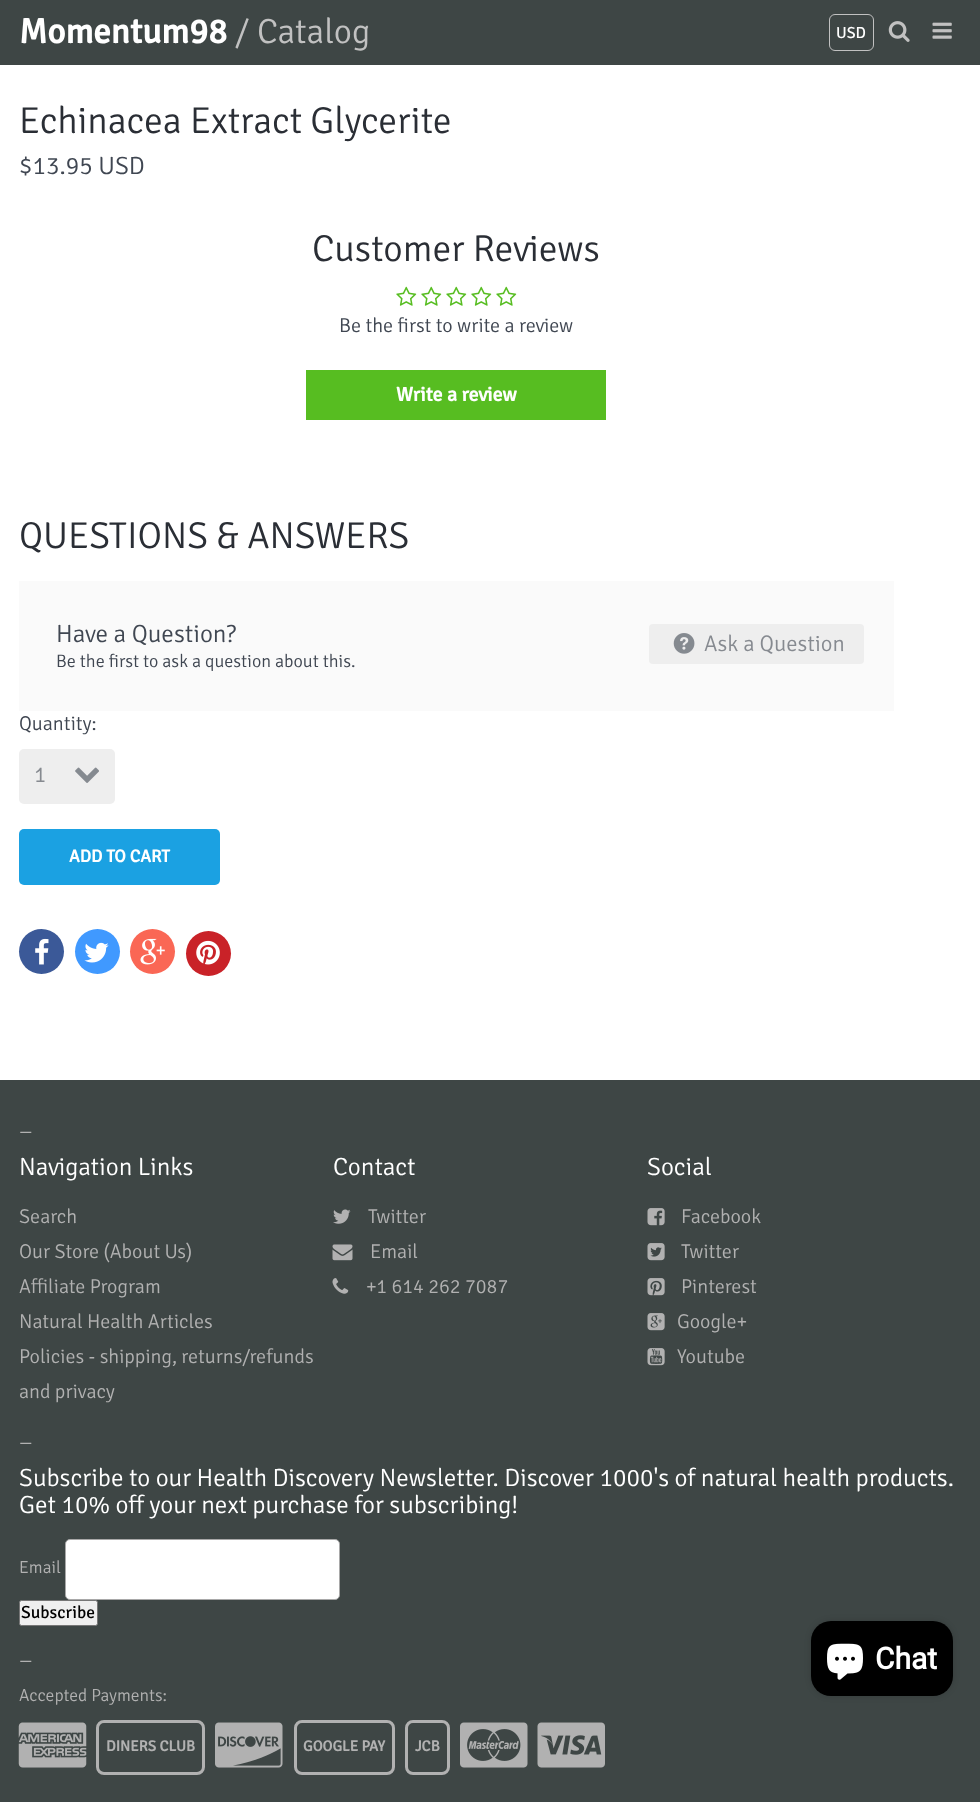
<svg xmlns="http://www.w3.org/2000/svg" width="980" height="1802">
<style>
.a{font:bold 35px Signika;fill:#fff}
.b{font:300 35px Signika;fill:#c1c1c1}
.c{font:16px Signika;fill:#fff}
.d{font:300 37.5px Signika;fill:#2a2e35}
.e{font:300 25px Signika;fill:#404752}
.f{font:300 20px Signika;fill:#404752}
.g{font:bold 20px Signika;fill:#fff}
.h{font:300 18px Signika;fill:#404752}
.i{font:300 22.5px Signika;fill:#868a90}
.j{font:bold 17.5px Signika;fill:#fff}
.k{font:300 17.5px Signika;fill:#b1b1b1}
.l{font:300 25px Signika;fill:#fff}
.m{font:300 20px Signika;fill:#b1b1b1}
.n{font:17.5px Signika;fill:#000}
.o{font:bold 15px Signika;fill:#b1b1b1}
.p{font:bold 30px Roboto;fill:#fff}
</style>
<rect width="100%" height="100%" fill="#fff"/>
<path fill="#3e4645" d="M0 0h980v65H0z"/>
<rect fill="none" stroke="#c1c1c1" x="829.5" y="14.5" width="44" height="36" rx="5.5"/>
<image href="1.png" x="888" y="21" width="22" height="21"/>
<image href="2.png" x="932" y="22" width="20" height="17"/>
<image href="3.png" x="396" y="286" width="21" height="20"/>
<image href="3.png" x="421" y="286" width="21" height="20"/>
<image href="3.png" x="446" y="286" width="21" height="20"/>
<image href="3.png" x="471" y="286" width="21" height="20"/>
<image href="3.png" x="496" y="286" width="21" height="20"/>
<path fill="#57bd21" d="M306 370h300v50H306z"/>
<path fill="#fafafa" d="M19 581h875v130H19z"/>
<rect fill="#eee" x="649" y="624" width="215" height="40" rx="4"/>
<image href="4.png" x="673" y="633" width="22" height="21"/>
<rect fill="#eee" x="19" y="749" width="96" height="55" rx="5"/>
<image href="5.png" x="75" y="767" width="24" height="16"/>
<rect fill="#1ba1e2" x="19" y="829" width="201" height="56" rx="5"/>
<circle fill="#3b5998" cx="41.5" cy="951.5" r="22.5"/>
<image href="6.png" x="35" y="938" width="14" height="27"/>
<circle fill="#4099ff" cx="97.5" cy="951.5" r="22.5"/>
<image href="7.png" x="84" y="942" width="25" height="21"/>
<circle fill="#fa6755" cx="152.5" cy="951.5" r="22.5"/>
<image href="8.png" x="140" y="938" width="25" height="27"/>
<circle fill="#c92228" cx="208.5" cy="953.5" r="22.5"/>
<image href="9.png" x="196" y="940" width="24" height="25"/>
<path fill="#3e4645" d="M0 1080h980v722H0z"/>
<image href="10.png" x="333" y="1209" width="18" height="15"/>
<image href="11.png" x="332" y="1244" width="21" height="17"/>
<image href="12.png" x="332" y="1278" width="17" height="16"/>
<image href="13.png" x="647" y="1208" width="18" height="18"/>
<image href="14.png" x="647" y="1243" width="18" height="18"/>
<image href="15.png" x="647" y="1278" width="18" height="18"/>
<image href="16.png" x="647" y="1313" width="18" height="18"/>
<image href="17.png" x="647" y="1348" width="18" height="18"/>
<rect fill="#fff" stroke="#a8a8a8" x="65.5" y="1539.5" width="274" height="60" rx="4.5"/>
<rect fill="#efefef" stroke="#767676" x="19.5" y="1600.5" width="78" height="25" rx="2"/>
<image href="18.png" x="18" y="1722" width="69" height="46"/>
<rect fill="none" stroke="#b1b1b1" stroke-width="3" x="97.5" y="1721.5" width="106" height="52" rx="6.5"/>
<image href="19.png" x="215" y="1722" width="68" height="46"/>
<rect fill="none" stroke="#b1b1b1" stroke-width="3" x="295.5" y="1721.5" width="98" height="52" rx="6.5"/>
<rect fill="none" stroke="#b1b1b1" stroke-width="3" x="406.5" y="1721.5" width="42" height="52" rx="6.5"/>
<image href="20.png" x="460" y="1722" width="68" height="46"/>
<image href="21.png" x="537" y="1722" width="68" height="46"/>
<rect fill="#00000026" filter="blur(3px)" x="811" y="1621" width="142" height="75" rx="20"/>
<rect fill="#000" x="811" y="1621" width="142" height="75" rx="20"/>
<image href="22.png" x="827" y="1643" width="36" height="37"/>
<text class="a" x="19" y="43">Momentum98</text>
<text class="b" x="235" y="43">/ Catalog</text>
<text class="c" x="836" y="38">USD</text>
<text class="d" x="19" y="133">Echinacea Extract Glycerite</text>
<text class="e" x="19" y="174">$13.95 USD</text>
<text class="d" x="312" y="261">Customer Reviews</text>
<text class="f" x="339" y="332">Be the first to write a review</text>
<text class="g" x="396" y="401">Write a review</text>
<text class="d" x="19" y="548">QUESTIONS &amp; ANSWERS</text>
<text class="e" x="56" y="642">Have a Question?</text>
<text class="h" x="56" y="667">Be the first to ask a question about this.</text>
<text class="i" x="704" y="651">Ask a Question</text>
<text class="f" x="19" y="730">Quantity:</text>
<text class="i" x="34" y="782">1</text>
<text class="j" x="69" y="862">ADD TO CART</text>
<text class="k" x="19" y="1137">—</text>
<text class="l" x="19" y="1175">Navigation Links</text>
<text class="m" x="19" y="1223">Search</text>
<text class="m" x="19" y="1258">Our Store (About Us)</text>
<text class="m" x="19" y="1293">Affiliate Program</text>
<text class="m" x="19" y="1328">Natural Health Articles</text>
<text class="m" x="19" y="1363">Policies - shipping, returns/refunds</text>
<text class="m" x="19" y="1398">and privacy</text>
<text class="l" x="333" y="1175">Contact</text>
<text class="m" x="368" y="1223">Twitter</text>
<text class="m" x="370" y="1258">Email</text>
<text class="m" x="366" y="1293">+1 614 262 7087</text>
<text class="l" x="647" y="1175">Social</text>
<text class="m" x="681" y="1223">Facebook</text>
<text class="m" x="681" y="1258">Twitter</text>
<text class="m" x="681" y="1293">Pinterest</text>
<text class="m" x="677" y="1328">Google+</text>
<text class="m" x="677" y="1363">Youtube</text>
<text class="k" x="19" y="1448">—</text>
<text class="l" x="19" y="1486">Subscribe to our Health Discovery Newsletter. Discover 1000's of natural health products.</text>
<text class="l" x="19" y="1513">Get 10% off your next purchase for subscribing!</text>
<text class="k" x="19" y="1573">Email</text>
<text class="n" x="21" y="1618">Subscribe</text>
<text class="k" x="19" y="1666">—</text>
<text class="k" x="19" y="1701">Accepted Payments:</text>
<text class="o" x="106" y="1751">DINERS CLUB</text>
<text class="o" x="303" y="1751">GOOGLE PAY</text>
<text class="o" x="415" y="1751">JCB</text>
<text class="p" x="875" y="1669">Chat</text>
</svg>
